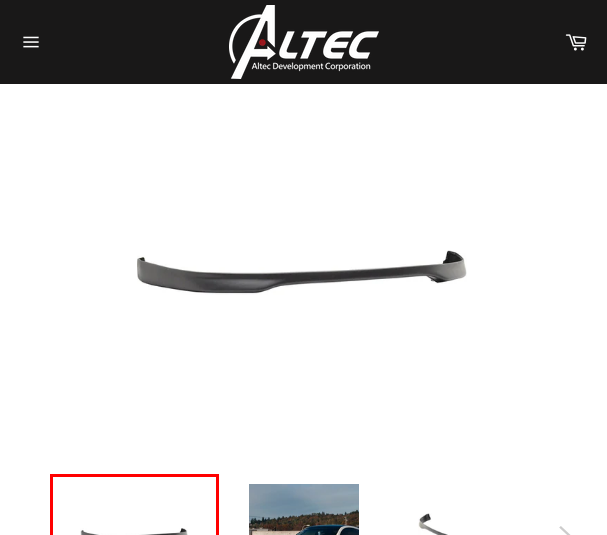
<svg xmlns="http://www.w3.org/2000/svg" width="607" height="535">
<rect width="100%" height="100%" fill="#fff"/>
<path fill="#191818" d="M0 0h607v84H0z"/>
<image href="1.png" x="23" y="36" width="16" height="12"/>
<image href="2.png" x="229" y="5" width="150" height="74"/>
<image href="3.png" x="565" y="34" width="22" height="17"/>
<image href="4.png" x="137" y="250" width="330" height="45"/>
<image href="5.png" x="80" y="528" width="108" height="7"/>
<path fill="none" stroke="#f00" stroke-width="3" d="M51.5 475.5h166v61H51.5z"/>
<image href="6.png" x="249" y="484" width="110" height="51"/>
<image href="7.png" x="418" y="513" width="30" height="22"/>
<image href="8.png" x="559" y="526" width="12" height="9"/>
</svg>
